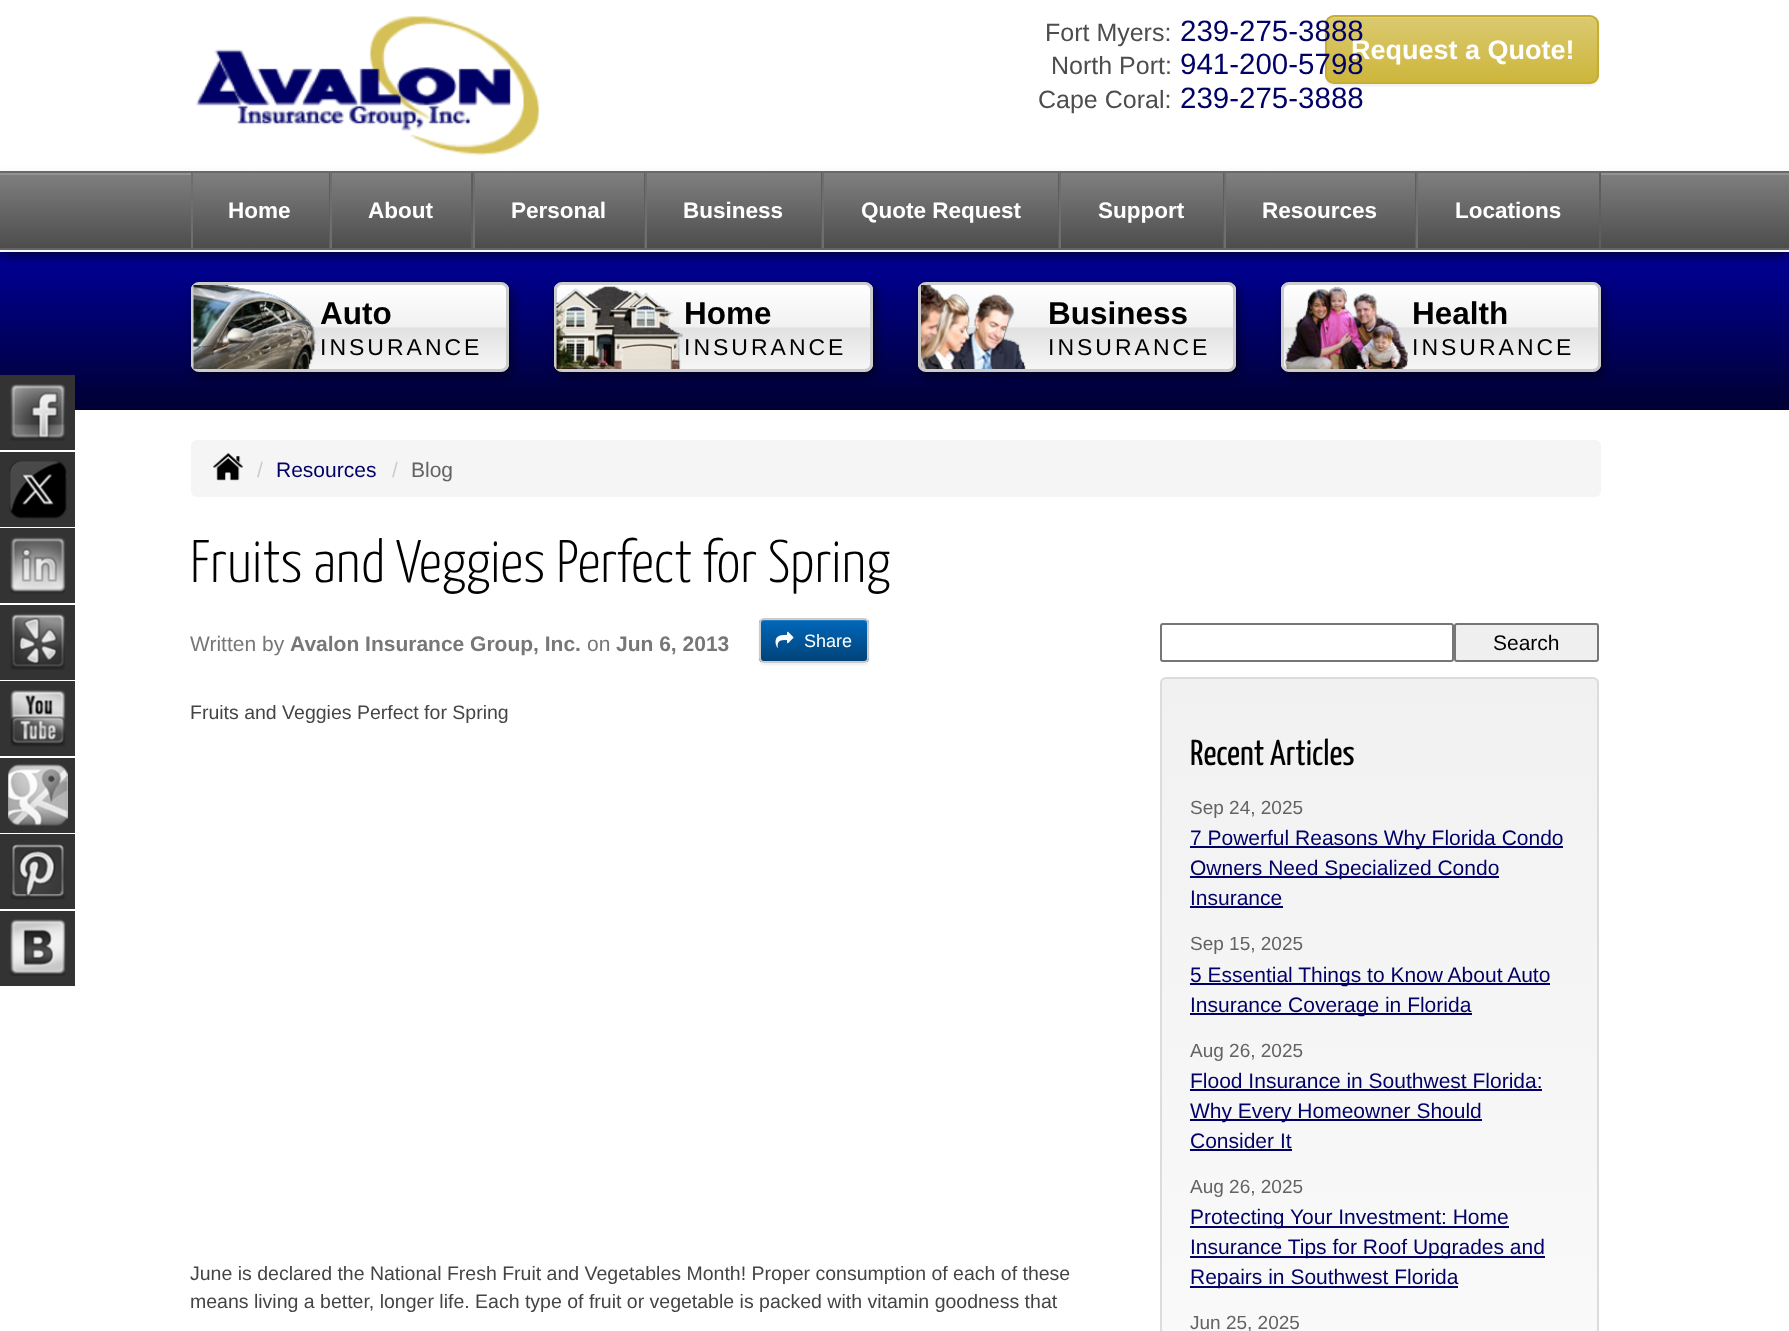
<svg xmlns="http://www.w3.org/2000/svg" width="1789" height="1331">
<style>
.a{font:25px Liberation Sans;fill:#4d4d4d}
.b{font:29.5px Liberation Sans;fill:#006}
.c{font:bold 27px Liberation Sans;fill:#fff}
.d{font:bold 22.5px Liberation Sans;fill:#fff}
.e{font:bold 31.5px Liberation Sans;fill:#000}
.f{font:23px Liberation Sans;letter-spacing:3px;fill:#000}
.g{font:21px Liberation Sans;fill:#ccc}
.h{font:21px Liberation Sans;fill:#006}
.i{font:21px Liberation Sans;fill:#636363}
.j{font:300 60px Yanone Kaffeesatz;fill:#000}
.k{font:21px Liberation Sans;fill:#777}
.l{font:bold 21px Liberation Sans;fill:#777}
.m{font:18px Liberation Sans;fill:#fff}
.n{font:19.5px Liberation Sans;fill:#444}
.o{font:21px Liberation Sans;fill:#000}
.p{font:36px Yanone Kaffeesatz;fill:#000}
.q{font:19px Liberation Sans;fill:#636363}
</style>
<defs>
<linearGradient id="g1" gradientUnits="userSpaceOnUse" x1="895" y1="252" x2="895" y2="410"><stop offset="0" stop-color="#009"/><stop offset="1" stop-color="#003"/></linearGradient>
<clipPath id="clip1"><path d="M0 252h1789v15H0z"/></clipPath>
<clipPath id="clip2"><rect x="1325" y="15" width="274" height="69" rx="9"/></clipPath>
<linearGradient id="g2" gradientUnits="userSpaceOnUse" x1="1462" y1="16" x2="1462" y2="83"><stop offset="0" stop-color="#dbca71"/><stop offset="1" stop-color="#cdb63b"/></linearGradient>
<linearGradient id="g3" gradientUnits="userSpaceOnUse" x1="895" y1="172" x2="895" y2="248"><stop offset="0" stop-color="#808080"/><stop offset="1" stop-color="#4d4d4d"/></linearGradient>
<linearGradient id="g4" gradientUnits="userSpaceOnUse" x1="896" y1="172" x2="896" y2="248"><stop offset="0" stop-color="#808080"/><stop offset="1" stop-color="#4d4d4d"/></linearGradient>
<clipPath id="clip3"><rect x="191" y="282" width="318" height="90" rx="8"/></clipPath>
<linearGradient id="g5" gradientUnits="userSpaceOnUse" x1="350" y1="285" x2="350" y2="369"><stop offset="0" stop-color="#fff"/><stop offset="0.5" stop-color="#f1f1f1"/><stop offset="0.51" stop-color="#e1e1e1"/><stop offset="1" stop-color="#f6f6f6"/></linearGradient>
<clipPath id="clip4"><rect x="554" y="282" width="319" height="90" rx="8"/></clipPath>
<linearGradient id="g6" gradientUnits="userSpaceOnUse" x1="713" y1="285" x2="713" y2="369"><stop offset="0" stop-color="#fff"/><stop offset="0.5" stop-color="#f1f1f1"/><stop offset="0.51" stop-color="#e1e1e1"/><stop offset="1" stop-color="#f6f6f6"/></linearGradient>
<clipPath id="clip5"><rect x="918" y="282" width="318" height="90" rx="8"/></clipPath>
<linearGradient id="g7" gradientUnits="userSpaceOnUse" x1="1077" y1="285" x2="1077" y2="369"><stop offset="0" stop-color="#fff"/><stop offset="0.5" stop-color="#f1f1f1"/><stop offset="0.51" stop-color="#e1e1e1"/><stop offset="1" stop-color="#f6f6f6"/></linearGradient>
<clipPath id="clip6"><rect x="1281" y="282" width="320" height="90" rx="8"/></clipPath>
<linearGradient id="g8" gradientUnits="userSpaceOnUse" x1="1441" y1="285" x2="1441" y2="369"><stop offset="0" stop-color="#fff"/><stop offset="0.5" stop-color="#f1f1f1"/><stop offset="0.51" stop-color="#e1e1e1"/><stop offset="1" stop-color="#f6f6f6"/></linearGradient>
<clipPath id="clip7"><rect x="759" y="618" width="110" height="45" rx="5"/></clipPath>
<linearGradient id="g9" gradientUnits="userSpaceOnUse" x1="814" y1="620" x2="814" y2="662"><stop offset="0" stop-color="#0068bb"/><stop offset="1" stop-color="#004277"/></linearGradient>
<clipPath id="clip8"><rect x="1160" y="677" width="439" height="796" rx="6"/></clipPath>
<linearGradient id="g10" gradientUnits="userSpaceOnUse" x1="1379" y1="678" x2="1379" y2="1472"><stop offset="0" stop-color="#f1f1f1"/><stop offset="1" stop-color="#fbfbfb"/></linearGradient>
</defs>
<rect width="100%" height="100%" fill="#fff"/>
<path fill="url(#g1)" d="M0 252h1789v158H0z"/>
<g clip-path="url(#clip1)">
<path fill="#000" filter="blur(7.5px)" d="M0 0h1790v252H0z"/>
</g>
<image href="1.png" x="196" y="16" width="344" height="140"/>
<rect fill="#00000012" filter="blur(1px)" x="1325" y="17" width="274" height="69" rx="9"/>
<g clip-path="url(#clip2)">
<path fill="url(#g2)" d="M1325 17h274v66H1325z"/>
</g>
<path fill="#e0d285" d="M1334 18h256c4 0 8 3 8 8v-1c0-4-4-8-8-8h-256c-4 0-8 4-8 8v1c0-5 3-8 8-8z"/>
<rect fill="none" stroke="#c5ae32" stroke-width="2" x="1326" y="16" width="272" height="67" rx="8"/>
<path fill="#00000012" filter="blur(4px)" d="M0 173h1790v78H0z"/>
<path fill="url(#g3)" d="M0 175h1789v73H0z"/>
<path fill="#929292" d="M0 173h1789v2H0z"/>
<path fill="#696969" d="M0 171h1789v2H0z"/>
<path fill="#636363" d="M0 248h1789v2H0z"/>
<path fill="url(#g4)" d="M193 173h1406v2H193z"/>
<path fill="#5e5e5e" d="M329 173h1v75H329z"/>
<path fill="#6e6e6e" d="M191 173h2v75H191z"/>
<path fill="#5e5e5e" d="M471 173h2v75H471z"/>
<path fill="#6e6e6e" d="M330 173h2v75H330z"/>
<path fill="#5e5e5e" d="M644 173h1v75H644z"/>
<path fill="#6e6e6e" d="M473 173h2v75H473z"/>
<path fill="#5e5e5e" d="M821 173h1v75H821z"/>
<path fill="#6e6e6e" d="M645 173h2v75H645z"/>
<path fill="#5e5e5e" d="M1058 173h1v75H1058z"/>
<path fill="#6e6e6e" d="M822 173h2v75H822z"/>
<path fill="#5e5e5e" d="M1223 173h1v75H1223z"/>
<path fill="#6e6e6e" d="M1059 173h2v75H1059z"/>
<path fill="#5e5e5e" d="M1415 173h1v75H1415z"/>
<path fill="#6e6e6e" d="M1224 173h2v75H1224z"/>
<path fill="#5e5e5e" d="M1599 173h2v75H1599z"/>
<path fill="#6e6e6e" d="M1416 173h2v75H1416z"/>
<rect fill="#00000080" filter="blur(5px)" x="194" y="287" width="318" height="90" rx="8"/>
<g clip-path="url(#clip3)">
<path fill="url(#g5)" d="M191 285h318v84H191z"/>
</g>
<rect fill="none" stroke="#ccc" stroke-width="3" x="192.5" y="283.5" width="315" height="87" rx="6.5"/>
<image href="2.png" x="193" y="285" width="127" height="84"/>
<rect fill="#00000080" filter="blur(5px)" x="557" y="287" width="319" height="90" rx="8"/>
<g clip-path="url(#clip4)">
<path fill="url(#g6)" d="M554 285h319v84H554z"/>
</g>
<rect fill="none" stroke="#ccc" stroke-width="3" x="555.5" y="283.5" width="316" height="87" rx="6.5"/>
<image href="3.png" x="556" y="286" width="127" height="83"/>
<rect fill="#00000080" filter="blur(5px)" x="921" y="287" width="318" height="90" rx="8"/>
<g clip-path="url(#clip5)">
<path fill="url(#g7)" d="M918 285h318v84H918z"/>
</g>
<rect fill="none" stroke="#ccc" stroke-width="3" x="919.5" y="283.5" width="315" height="87" rx="6.5"/>
<image href="4.png" x="921" y="285" width="105" height="84"/>
<rect fill="#00000080" filter="blur(5px)" x="1284" y="287" width="320" height="90" rx="8"/>
<g clip-path="url(#clip6)">
<path fill="url(#g8)" d="M1281 285h320v84H1281z"/>
</g>
<rect fill="none" stroke="#ccc" stroke-width="3" x="1282.5" y="283.5" width="317" height="87" rx="6.5"/>
<image href="5.png" x="1285" y="287" width="123" height="82"/>
<path fill="#333" d="M0 375h75v75H0z"/>
<image href="6.png" x="10" y="384" width="56" height="57"/>
<path fill="#333" d="M0 452h75v75H0z"/>
<image href="7.png" x="9" y="460" width="58" height="59"/>
<path fill="#333" d="M0 528h75v75H0z"/>
<image href="8.png" x="10" y="537" width="56" height="57"/>
<path fill="#333" d="M0 605h75v75H0z"/>
<image href="9.png" x="10" y="613" width="55" height="57"/>
<path fill="#333" d="M0 681h75v75H0z"/>
<image href="10.png" x="10" y="690" width="56" height="57"/>
<path fill="#333" d="M0 758h75v75H0z"/>
<image href="11.png" x="8" y="764" width="60" height="62"/>
<path fill="#333" d="M0 834h75v75H0z"/>
<image href="12.png" x="10" y="844" width="55" height="56"/>
<path fill="#333" d="M0 911h75v75H0z"/>
<image href="13.png" x="10" y="919" width="56" height="57"/>
<rect fill="#f5f5f5" x="191" y="440" width="1410" height="57" rx="6"/>
<image href="14.png" x="213" y="453" width="30" height="28"/>
<rect fill="#00000012" filter="blur(1px)" x="759" y="620" width="110" height="45" rx="5"/>
<g clip-path="url(#clip7)">
<path fill="url(#g9)" d="M759 620h110v42H759z"/>
</g>
<path fill="#267fc4" d="M764 621h100c2 0 3 1 3 3v-1c0-2-1-3-3-3h-100c-1 0-2 1-3 2z"/>
<rect fill="none" stroke="#ccc" stroke-width="2" x="760" y="619" width="108" height="43" rx="4"/>
<image href="15.png" x="775" y="631" width="19" height="17"/>
<rect fill="none" stroke="#767676" stroke-width="2" x="1161" y="624" width="292" height="37" rx="2"/>
<rect fill="#efefef" stroke="#767676" stroke-width="2" x="1455" y="624" width="143" height="37" rx="2"/>
<g clip-path="url(#clip8)">
<path fill="url(#g10)" d="M1160 678h439v653H1160z"/>
</g>
<rect fill="none" stroke="#dcdcdc" stroke-width="2" x="1161" y="678" width="437" height="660" rx="5"/>
<path fill="#006" d="M1190 846h373v2H1190z"/>
<path fill="#006" d="M1190 876h309v2H1190z"/>
<path fill="#006" d="M1190 906h93v2H1190z"/>
<path fill="#006" d="M1190 983h360v2H1190z"/>
<path fill="#006" d="M1190 1013h282v2H1190z"/>
<path fill="#006" d="M1190 1089h352v2H1190z"/>
<path fill="#006" d="M1190 1119h292v2H1190z"/>
<path fill="#006" d="M1190 1149h102v2H1190z"/>
<path fill="#006" d="M1190 1226h319v2H1190z"/>
<path fill="#006" d="M1190 1256h355v2H1190z"/>
<path fill="#006" d="M1190 1286h268v2H1190z"/>
<text class="a" x="1045" y="41">Fort Myers:</text>
<text class="b" x="1180" y="41">239-275-3888</text>
<text class="a" x="1051" y="74">North Port:</text>
<text class="a" x="1038" y="108">Cape Coral:</text>
<text class="b" x="1180" y="108">239-275-3888</text>
<text class="c" x="1351" y="59">Request a Quote!</text>
<text class="b" x="1180" y="74">941-200-5798</text>
<text class="d" x="228" y="218">Home</text>
<text class="d" x="368" y="218">About</text>
<text class="d" x="511" y="218">Personal</text>
<text class="d" x="683" y="218">Business</text>
<text class="d" x="861" y="218">Quote Request</text>
<text class="d" x="1098" y="218">Support</text>
<text class="d" x="1262" y="218">Resources</text>
<text class="d" x="1455" y="218">Locations</text>
<text class="e" x="320" y="324">Auto</text>
<text class="f" x="320" y="355">INSURANCE</text>
<text class="e" x="684" y="324">Home</text>
<text class="f" x="684" y="355">INSURANCE</text>
<text class="e" x="1048" y="324">Business</text>
<text class="f" x="1048" y="355">INSURANCE</text>
<text class="e" x="1412" y="324">Health</text>
<text class="f" x="1412" y="355">INSURANCE</text>
<text class="g" x="257" y="477">/</text>
<text class="h" x="276" y="477">Resources</text>
<text class="g" x="392" y="477">/</text>
<text class="i" x="411" y="477">Blog</text>
<text class="j" x="190" y="582">Fruits and Veggies Perfect for Spring</text>
<text class="k" x="190" y="651">Written by</text>
<text class="l" x="290" y="651">Avalon Insurance Group, Inc.</text>
<text class="k" x="587" y="651">on</text>
<text class="l" x="616" y="651">Jun 6, 2013</text>
<text class="m" x="804" y="647">Share</text>
<text class="n" x="190" y="719">Fruits and Veggies Perfect for Spring</text>
<text class="n" x="190" y="1280">June is declared the National Fresh Fruit and Vegetables Month! Proper consumption of each of these</text>
<text class="n" x="190" y="1308">means living a better, longer life. Each type of fruit or vegetable is packed with vitamin goodness that</text>
<text class="o" x="1493" y="650">Search</text>
<text class="p" x="1190" y="765">Recent Articles</text>
<text class="q" x="1190" y="814">Sep 24, 2025</text>
<text class="h" x="1190" y="845">7 Powerful Reasons Why Florida Condo</text>
<text class="h" x="1190" y="875">Owners Need Specialized Condo</text>
<text class="h" x="1190" y="905">Insurance</text>
<text class="q" x="1190" y="950">Sep 15, 2025</text>
<text class="h" x="1190" y="982">5 Essential Things to Know About Auto</text>
<text class="h" x="1190" y="1012">Insurance Coverage in Florida</text>
<text class="q" x="1190" y="1057">Aug 26, 2025</text>
<text class="h" x="1190" y="1088">Flood Insurance in Southwest Florida:</text>
<text class="h" x="1190" y="1118">Why Every Homeowner Should</text>
<text class="h" x="1190" y="1148">Consider It</text>
<text class="q" x="1190" y="1193">Aug 26, 2025</text>
<text class="h" x="1190" y="1224">Protecting Your Investment: Home</text>
<text class="h" x="1190" y="1254">Insurance Tips for Roof Upgrades and</text>
<text class="h" x="1190" y="1284">Repairs in Southwest Florida</text>
<text class="q" x="1190" y="1329">Jun 25, 2025</text>
</svg>
